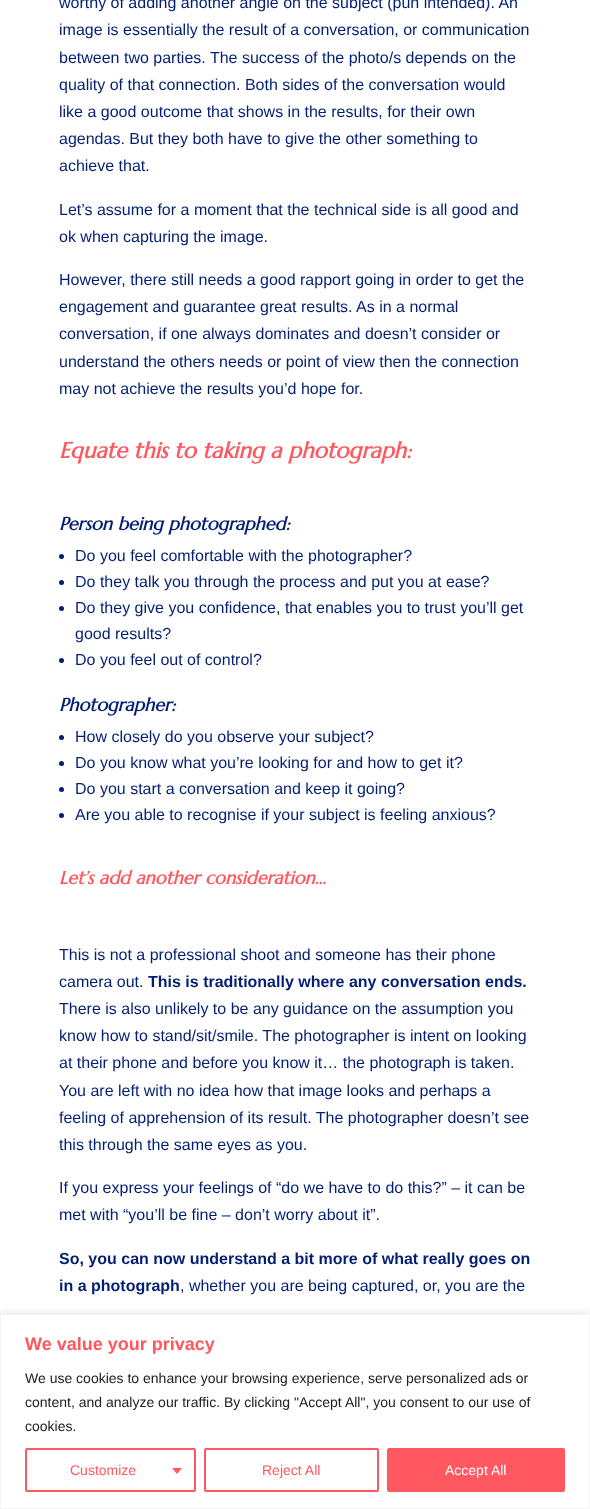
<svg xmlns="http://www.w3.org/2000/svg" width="590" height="1509">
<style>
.a{font:16px Liberation Sans;fill:#031f73}
.b{font:italic bold 22px Marcellus;fill:#ff585f}
.c{font:italic bold 18px Marcellus;fill:#031f73}
.d{font:italic bold 18px Marcellus;fill:#ff585f}
.e{font:bold 16px Liberation Sans;fill:#031f73}
.f{font:bold 18px Liberation Sans;fill:#ff585f}
.g{font:14px Liberation Sans;fill:#212121}
.h{font:14px Liberation Sans;fill:#ff585f}
.i{font:14px Liberation Sans;fill:#fff}
</style>
<rect width="100%" height="100%" fill="#fff"/>
<circle fill="#031f73" cx="61.5" cy="556.5" r="2.5"/>
<circle fill="#031f73" cx="61.5" cy="582.5" r="2.5"/>
<circle fill="#031f73" cx="61.5" cy="608.5" r="2.5"/>
<circle fill="#031f73" cx="61.5" cy="660.5" r="2.5"/>
<circle fill="#031f73" cx="61.5" cy="737.5" r="2.5"/>
<circle fill="#031f73" cx="61.5" cy="763.5" r="2.5"/>
<circle fill="#031f73" cx="61.5" cy="789.5" r="2.5"/>
<circle fill="#031f73" cx="61.5" cy="815.5" r="2.5"/>
<path fill="#acabab4d" filter="blur(5px)" d="M0 1313h590v195H0z"/>
<path fill="#fff" stroke="#f4f4f4" d="M0.5 1314.5h589v194H0.5z"/>
<rect fill="none" stroke="#ff5860" stroke-width="2" x="26" y="1449" width="169" height="42" rx="1"/>
<path fill="#ff5860" d="M172 1468h10l-5 6z"/>
<rect fill="none" stroke="#ff5860" stroke-width="2" x="205" y="1449" width="173" height="42" rx="1"/>
<rect fill="#ff5860" stroke="#ff5860" stroke-width="2" x="388" y="1449" width="176" height="42" rx="1"/>
<text class="a" x="59" y="8">worthy of adding another angle on the subject (pun intended). An</text>
<text class="a" x="59" y="35">image is essentially the result of a conversation, or communication</text>
<text class="a" x="59" y="63">between two parties. The success of the photo/s depends on the</text>
<text class="a" x="59" y="90">quality of that connection. Both sides of the conversation would</text>
<text class="a" x="59" y="117">like a good outcome that shows in the results, for their own</text>
<text class="a" x="59" y="144">agendas. But they both have to give the other something to</text>
<text class="a" x="59" y="171">achieve that.</text>
<text class="a" x="59" y="215">Let’s assume for a moment that the technical side is all good and</text>
<text class="a" x="59" y="242">ok when capturing the image.</text>
<text class="a" x="59" y="285">However, there still needs a good rapport going in order to get the</text>
<text class="a" x="59" y="312">engagement and guarantee great results. As in a normal</text>
<text class="a" x="59" y="339">conversation, if one always dominates and doesn’t consider or</text>
<text class="a" x="59" y="367">understand the others needs or point of view then the connection</text>
<text class="a" x="59" y="394">may not achieve the results you’d hope for.</text>
<text class="b" x="59" y="458">Equate this to taking a photograph:</text>
<text class="c" x="59" y="530">Person being photographed:</text>
<text class="a" x="75" y="561">Do you feel comfortable with the photographer?</text>
<text class="a" x="75" y="587">Do they talk you through the process and put you at ease?</text>
<text class="a" x="75" y="613">Do they give you confidence, that enables you to trust you’ll get</text>
<text class="a" x="75" y="639">good results?</text>
<text class="a" x="75" y="665">Do you feel out of control?</text>
<text class="c" x="59" y="711">Photographer:</text>
<text class="a" x="75" y="742">How closely do you observe your subject?</text>
<text class="a" x="75" y="768">Do you know what you’re looking for and how to get it?</text>
<text class="a" x="75" y="794">Do you start a conversation and keep it going?</text>
<text class="a" x="75" y="820">Are you able to recognise if your subject is feeling anxious?</text>
<text class="d" x="59" y="884">Let’s add another consideration…</text>
<text class="a" x="59" y="960">This is not a professional shoot and someone has their phone</text>
<text class="a" x="59" y="987">camera out.</text>
<text class="e" x="148" y="987">This is traditionally where any conversation ends.</text>
<text class="a" x="59" y="1014">There is also unlikely to be any guidance on the assumption you</text>
<text class="a" x="59" y="1041">know how to stand/sit/smile. The photographer is intent on looking</text>
<text class="a" x="59" y="1068">at their phone and before you know it… the photograph is taken.</text>
<text class="a" x="59" y="1096">You are left with no idea how that image looks and perhaps a</text>
<text class="a" x="59" y="1123">feeling of apprehension of its result. The photographer doesn’t see</text>
<text class="a" x="59" y="1150">this through the same eyes as you.</text>
<text class="a" x="59" y="1193">If you express your feelings of “do we have to do this?” – it can be</text>
<text class="a" x="59" y="1220">met with “you’ll be fine – don’t worry about it”.</text>
<text class="e" x="59" y="1264">So, you can now understand a bit more of what really goes on</text>
<text class="e" x="59" y="1291">in a photograph</text>
<text class="a" x="180" y="1291">, whether you are being captured, or, you are the</text>
<text class="f" x="25" y="1350">We value your privacy</text>
<text class="g" x="25" y="1383">We use cookies to enhance your browsing experience, serve personalized ads or</text>
<text class="g" x="25" y="1407">content, and analyze our traffic. By clicking "Accept All", you consent to our use of</text>
<text class="g" x="25" y="1431">cookies.</text>
<text class="h" x="70" y="1475">Customize</text>
<text class="h" x="262" y="1475">Reject All</text>
<text class="i" x="445" y="1475">Accept All</text>
</svg>
